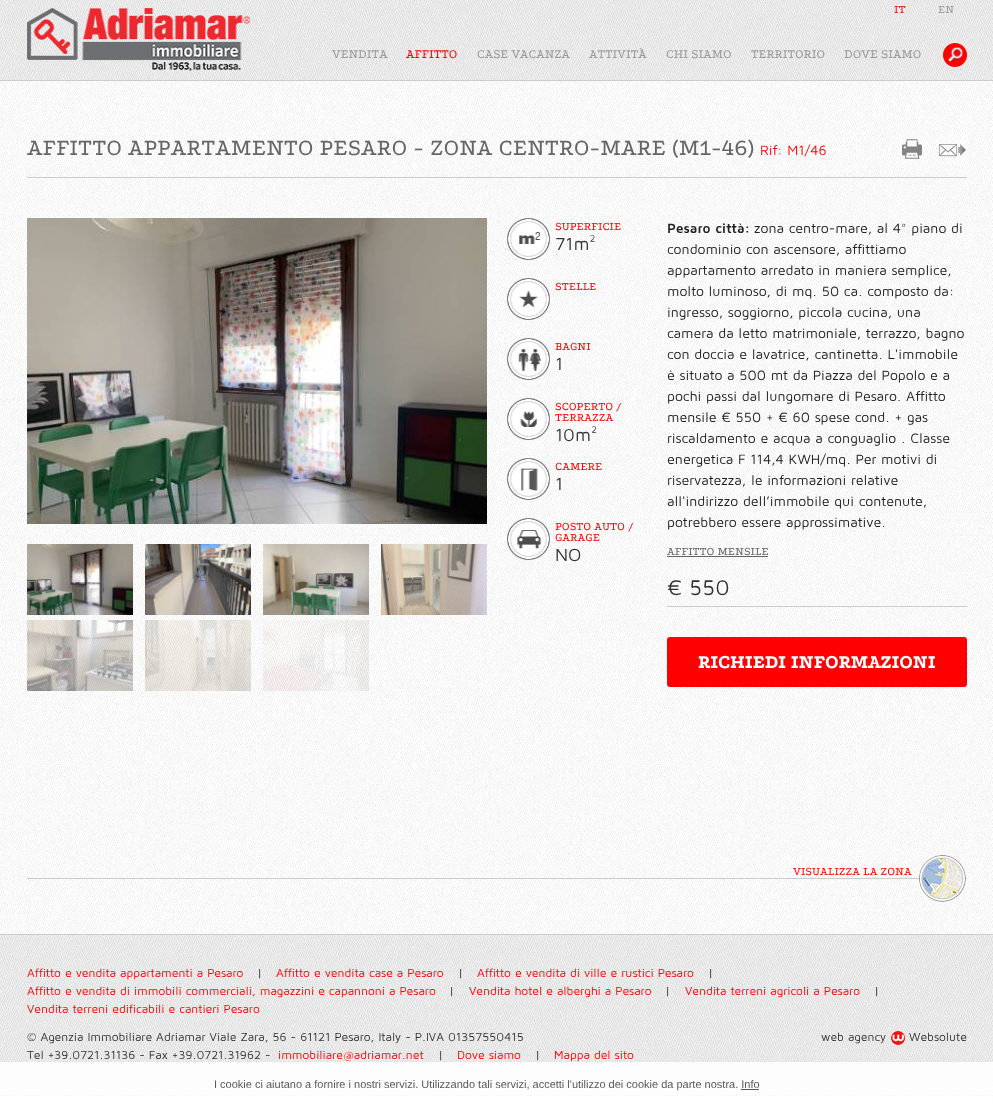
<svg xmlns="http://www.w3.org/2000/svg" width="993" height="1106">
<style>
.a{font:12px Podkova;fill:#f00}
.b{font:12px Podkova;fill:#999}
.c{font:13px Podkova;fill:#999}
.d{font:13px Podkova;fill:#f00}
.e{font:24px Podkova;fill:#666}
.f{font:14px Maven Pro;fill:#f00}
.g{font:18px Maven Pro;fill:#333}
.h{font:bold 14px Maven Pro;fill:#222}
.i{font:14px Maven Pro;fill:#222}
.j{font:12px Podkova;fill:#666}
.k{font:22px Maven Pro;fill:#333}
.l{font:bold 20px Podkova;fill:#fff}
.m{font:12px Maven Pro;fill:#f00}
.n{font:12px Maven Pro;fill:#333}
.o{font:11px Liberation Sans;fill:#5c5759}
</style>
<rect width="100%" height="100%" fill="#fff"/>
<image href="1.png" x="0" y="0" width="993" height="1106"/>
<path fill="#00000012" d="M0 0h993v80H0z"/>
<path fill="#ccc" d="M0 80h993v1H0z"/>
<image href="2.png" x="27" y="8" width="223" height="63"/>
<image href="3.png" x="943" y="43" width="24" height="24"/>
<path fill="#ccc" d="M27 177h940v1H27z"/>
<image href="4.png" x="897" y="134" width="30" height="30"/>
<image href="5.png" x="937" y="134" width="30" height="30"/>
<image href="6.png" x="27" y="218" width="460" height="306"/>
<image href="7.png" x="27" y="544" width="106" height="71"/>
<image href="8.png" x="145" y="544" width="106" height="71"/>
<image href="9.png" x="263" y="544" width="106" height="71"/>
<image href="10.png" x="381" y="544" width="106" height="71"/>
<image href="11.png" x="27" y="620" width="106" height="71"/>
<image href="12.png" x="145" y="620" width="106" height="71"/>
<image href="13.png" x="263" y="620" width="106" height="71"/>
<image href="14.png" x="507" y="218" width="43" height="42"/>
<image href="15.png" x="507" y="278" width="43" height="42"/>
<image href="16.png" x="507" y="338" width="43" height="42"/>
<image href="17.png" x="507" y="398" width="43" height="42"/>
<image href="18.png" x="507" y="458" width="43" height="42"/>
<image href="19.png" x="507" y="518" width="43" height="42"/>
<path fill="#666" d="M667 556h101v1H667z"/>
<path fill="#ccc" d="M667 606h300v1H667z"/>
<rect fill="#f00" x="667" y="637" width="300" height="50" rx="3"/>
<path fill="#ccc" d="M27 878h940v1H27z"/>
<image href="20.png" x="919" y="855" width="47" height="47"/>
<path fill="#ccc" d="M0 934h993v1H0z"/>
<path fill="#00000012" d="M0 935h993v160H0z"/>
<path fill="#ccc" d="M0 1095h993v1H0z"/>
<image href="21.png" x="891" y="1031" width="14" height="14"/>
<path fill="#ffffffe6" d="M0 1062h993v44H0z"/>
<path fill="#5c5759" d="M741 1089h18v1H741z"/>
<text class="a" x="894" y="13">IT</text>
<text class="b" x="938" y="13">EN</text>
<text class="c" x="332" y="58">VENDITA</text>
<text class="d" x="406" y="58">AFFITTO</text>
<text class="c" x="477" y="58">CASE VACANZA</text>
<text class="c" x="589" y="58">ATTIVITÀ</text>
<text class="c" x="666" y="58">CHI SIAMO</text>
<text class="c" x="751" y="58">TERRITORIO</text>
<text class="c" x="844" y="58">DOVE SIAMO</text>
<text class="e" x="27" y="155">AFFITTO APPARTAMENTO PESARO - ZONA CENTRO-MARE (M1-46)</text>
<text class="f" x="760" y="155">Rif: M1/46</text>
<text class="a" x="555" y="230">SUPERFICIE</text>
<text class="g" x="555" y="250">71m²</text>
<text class="a" x="555" y="290">STELLE</text>
<text class="a" x="555" y="350">BAGNI</text>
<text class="g" x="555" y="370">1</text>
<text class="a" x="555" y="410">SCOPERTO /</text>
<text class="a" x="555" y="421">TERRAZZA</text>
<text class="g" x="555" y="441">10m²</text>
<text class="a" x="555" y="470">CAMERE</text>
<text class="g" x="555" y="490">1</text>
<text class="a" x="555" y="530">POSTO AUTO /</text>
<text class="a" x="555" y="541">GARAGE</text>
<text class="g" x="555" y="561">NO</text>
<text class="h" x="667" y="233">Pesaro città:</text>
<text class="i" x="754" y="233">zona centro-mare, al 4° piano di</text>
<text class="i" x="667" y="254">condominio con ascensore, affittiamo</text>
<text class="i" x="667" y="275">appartamento arredato in maniera semplice,</text>
<text class="i" x="667" y="296">molto luminoso, di mq. 50 ca. composto da:</text>
<text class="i" x="667" y="317">ingresso, soggiorno, piccola cucina, una</text>
<text class="i" x="667" y="338">camera da letto matrimoniale, terrazzo, bagno</text>
<text class="i" x="667" y="359">con doccia e lavatrice, cantinetta. L'immobile</text>
<text class="i" x="667" y="380">è situato a 500 mt da Piazza del Popolo e a</text>
<text class="i" x="667" y="401">pochi passi dal lungomare di Pesaro. Affitto</text>
<text class="i" x="667" y="422">mensile € 550 + € 60 spese cond. + gas</text>
<text class="i" x="667" y="443">riscaldamento e acqua a conguaglio . Classe</text>
<text class="i" x="667" y="464">energetica F 114,4 KWH/mq. Per motivi di</text>
<text class="i" x="667" y="485">riservatezza, le informazioni relative</text>
<text class="i" x="667" y="506">all'indirizzo dell’immobile qui contenute,</text>
<text class="i" x="667" y="527">potrebbero essere approssimative.</text>
<text class="j" x="667" y="555">AFFITTO MENSILE</text>
<text class="k" x="667" y="595">€ 550</text>
<text class="l" x="698" y="668">RICHIEDI INFORMAZIONI</text>
<text class="a" x="793" y="875">VISUALIZZA LA ZONA</text>
<text class="m" x="27" y="977">Affitto e vendita appartamenti a Pesaro</text>
<text class="n" x="257" y="977">|</text>
<text class="m" x="276" y="977">Affitto e vendita case a Pesaro</text>
<text class="n" x="458" y="977">|</text>
<text class="m" x="477" y="977">Affitto e vendita di ville e rustici Pesaro</text>
<text class="n" x="708" y="977">|</text>
<text class="m" x="27" y="995">Affitto e vendita di immobili commerciali, magazzini e capannoni a Pesaro</text>
<text class="n" x="449" y="995">|</text>
<text class="m" x="469" y="995">Vendita hotel e alberghi a Pesaro</text>
<text class="n" x="665" y="995">|</text>
<text class="m" x="685" y="995">Vendita terreni agricoli a Pesaro</text>
<text class="n" x="874" y="995">|</text>
<text class="m" x="27" y="1013">Vendita terreni edificabili e cantieri Pesaro</text>
<text class="n" x="27" y="1041">© Agenzia Immobiliare Adriamar Viale Zara, 56 - 61121 Pesaro, Italy - P.IVA 01357550415</text>
<text class="n" x="27" y="1059">Tel +39.0721.31136 - Fax +39.0721.31962 -</text>
<text class="m" x="278" y="1059">immobiliare@adriamar.net</text>
<text class="n" x="438" y="1059">|</text>
<text class="m" x="457" y="1059">Dove siamo</text>
<text class="n" x="535" y="1059">|</text>
<text class="m" x="554" y="1059">Mappa del sito</text>
<text class="n" x="821" y="1041">web agency</text>
<text class="n" x="909" y="1041">Websolute</text>
<text class="o" x="214" y="1088">I cookie ci aiutano a fornire i nostri servizi. Utilizzando tali servizi, accetti l'utilizzo dei cookie da parte nostra. Info</text>
</svg>
